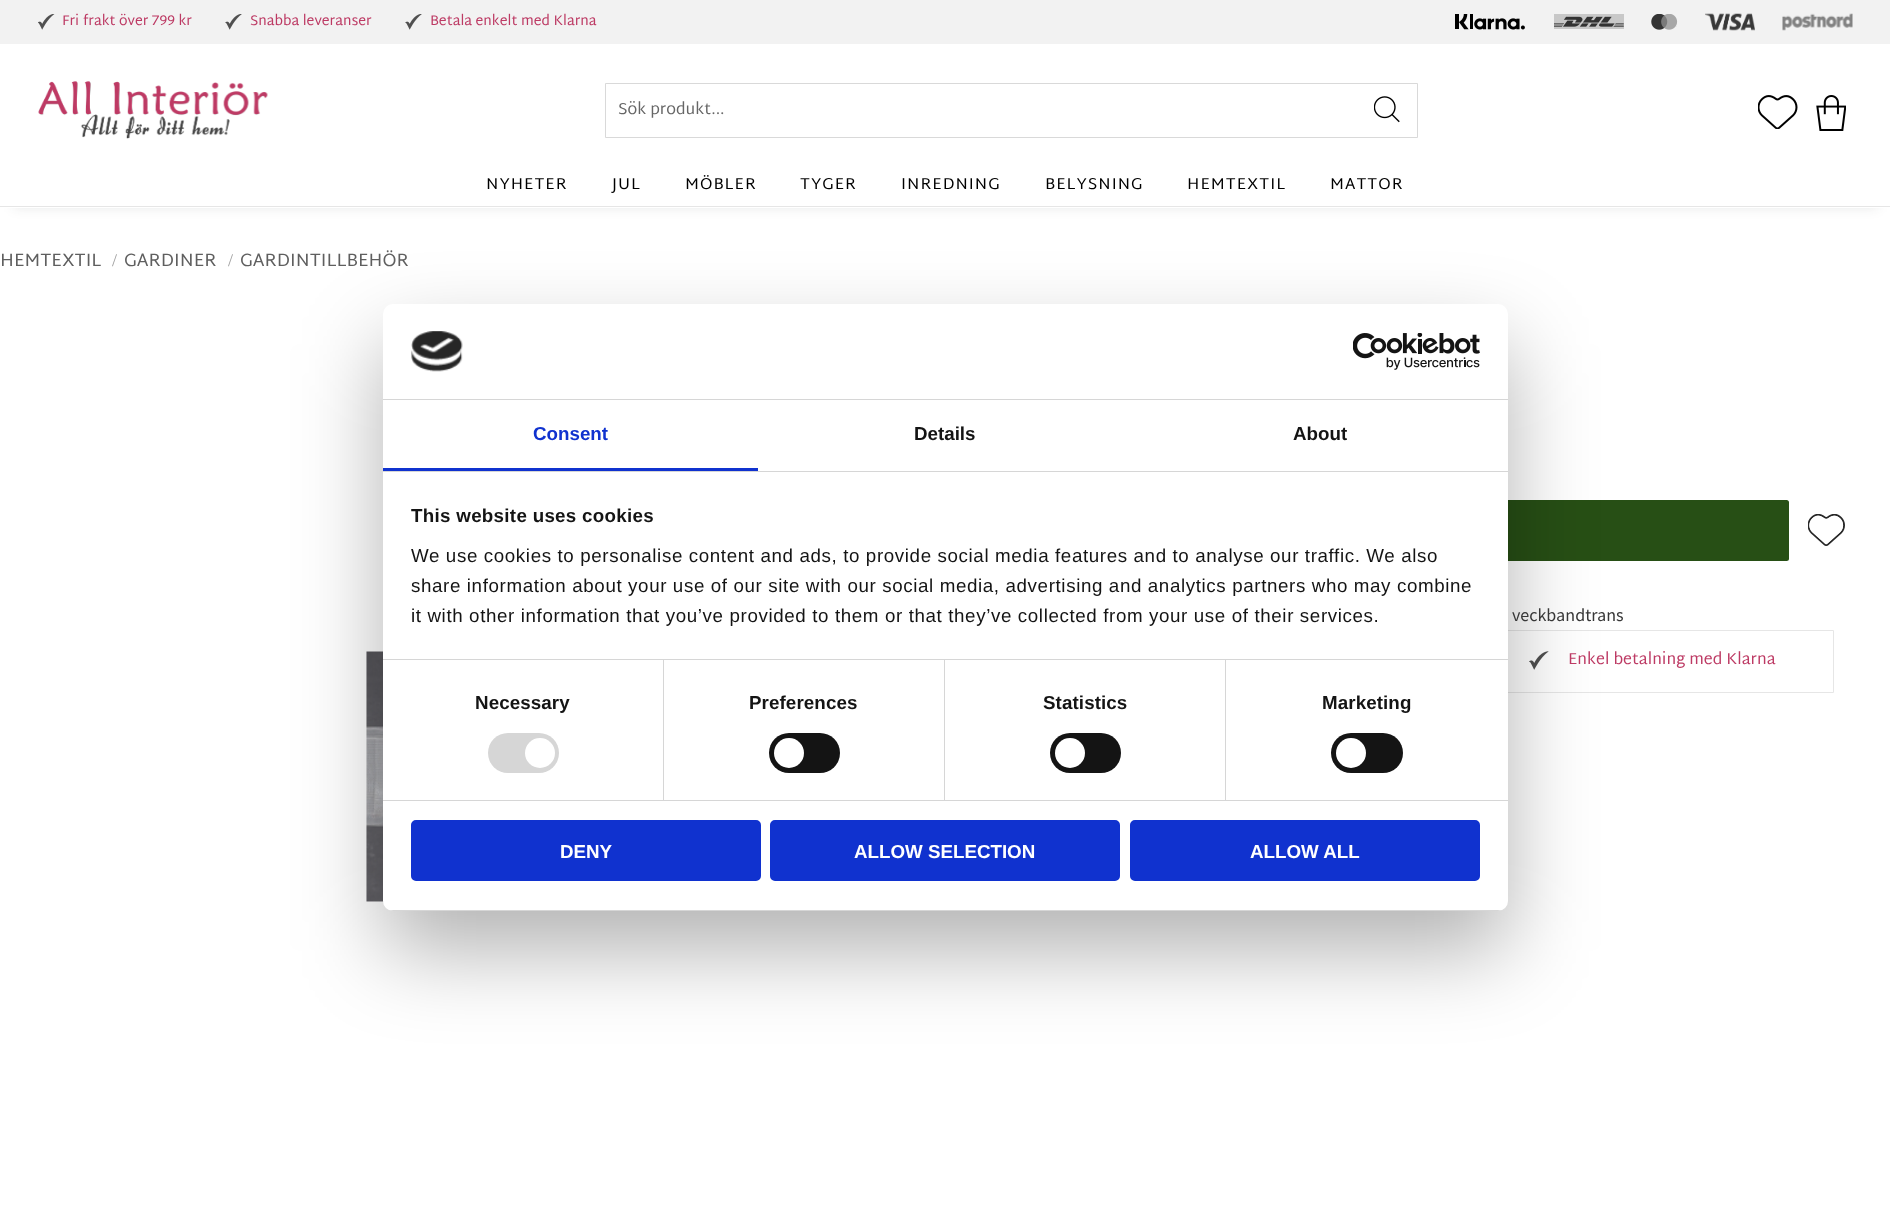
<svg xmlns="http://www.w3.org/2000/svg" width="1890" height="1213">
<style>
.a{font:14px Martel Sans;fill:#bd3a64}
.b{font:16px Martel Sans;fill:#666}
.c{font:16px Martel Sans;letter-spacing:1px;fill:#000}
.d{font:18px Martel Sans;fill:#5f5f5f}
.e{font:18px Liberation Serif;fill:#9f9f9f}
.f{font:18px Source Sans Pro;fill:#373737}
.g{font:16px Martel Sans;fill:#bd3a64}
.h{font:bold 18.75px Liberation Sans;fill:#1032cf}
.i{font:bold 18.75px Liberation Sans;fill:#141414}
.j{font:bold 18.75px Liberation Sans;letter-spacing:0.3px;fill:#141414}
.k{font:18.75px Liberation Sans;letter-spacing:0.62px;fill:#141414}
.l{font:bold 18.75px Liberation Sans;letter-spacing:0.1px;fill:#141414}
.m{font:bold 18.75px Liberation Sans;fill:#fff}
</style>
<defs>
<clipPath id="clip1"><path d="M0 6h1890v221h-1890zm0-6h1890v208h-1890z" clip-rule="evenodd"/></clipPath>
<clipPath id="clip2"><rect x="383" y="304" width="1125" height="607" rx="10"/></clipPath>
</defs>
<rect width="100%" height="100%" fill="#fff"/>
<g clip-path="url(#clip1)">
<path fill="#2123261a" filter="blur(6px)" d="M13 25h1865v183H13z"/>
</g>
<path fill="#e6e6e6" d="M0 206h1890v1H0z"/>
<path fill="#f2f2f2" d="M0 0h1890v44H0z"/>
<image href="1.png" x="38" y="14" width="17" height="16"/>
<image href="2.png" x="225" y="14" width="17" height="16"/>
<image href="2.png" x="405" y="14" width="17" height="16"/>
<image href="3.png" x="1455" y="14" width="70" height="16"/>
<image href="4.png" x="1554" y="14" width="70" height="15"/>
<image href="5.png" x="1651" y="14" width="27" height="16"/>
<image href="6.png" x="1705" y="13" width="50" height="18"/>
<image href="7.png" x="1782" y="13" width="71" height="18"/>
<image href="8.png" x="38" y="81" width="230" height="58"/>
<path fill="none" stroke="#d9d9d9" d="M605.5 83.5h812v54H605.5z"/>
<image href="9.png" x="1374" y="96" width="26" height="27"/>
<image href="10.png" x="1758" y="95" width="40" height="34"/>
<image href="11.png" x="1816" y="95" width="30" height="36"/>
<rect fill="#274f15" x="1115" y="500" width="674" height="61" rx="2.5"/>
<image href="12.png" x="1808" y="514" width="37" height="32"/>
<path fill="none" stroke="#e6e6e6" d="M1001.5 630.5h832v62H1001.5z"/>
<image href="13.png" x="1529" y="651" width="20" height="19"/>
<image href="14.png" x="366" y="651" width="18" height="251"/>
<rect fill="#0000004d" filter="blur(42.5px)" x="383" y="344" width="1125" height="607" rx="10"/>
<rect fill="#fff" x="383" y="304" width="1125" height="607" rx="10"/>
<path fill="#d6d6d6" d="M383 399h1125v1H383z"/>
<image href="15.png" x="411" y="331" width="52" height="41"/>
<image href="16.png" x="1353" y="333" width="127" height="37"/>
<path fill="#d6d6d6" d="M383 471h1125v1H383z"/>
<path fill="#1032cf" d="M383 468h375v3H383z"/>
<path fill="#d6d6d6" d="M383 659h1125v1H383z"/>
<path fill="#d6d6d6" d="M383 800h1125v1H383z"/>
<path fill="#d6d6d6" d="M663 660h1v140H663z"/>
<rect fill="#d6d6d6" x="488" y="733" width="71" height="40" rx="20"/>
<circle fill="#fff" cx="540" cy="753" r="15"/>
<path fill="#d6d6d6" d="M944 660h1v140H944z"/>
<rect fill="#141414" x="769" y="733" width="71" height="40" rx="20"/>
<circle fill="#fff" cx="789" cy="753" r="15"/>
<path fill="#d6d6d6" d="M1225 660h1v140H1225z"/>
<rect fill="#141414" x="1050" y="733" width="71" height="40" rx="20"/>
<circle fill="#fff" cx="1070" cy="753" r="15"/>
<rect fill="#141414" x="1331" y="733" width="72" height="40" rx="20"/>
<circle fill="#fff" cx="1351" cy="753" r="15"/>
<g clip-path="url(#clip2)">
<path fill="#d6d6d6" d="M383 910h1125v1H383z"/>
</g>
<rect fill="#1032cf" stroke="#1032cf" stroke-width="3" x="412.5" y="821.5" width="347" height="58" rx="3.5"/>
<rect fill="#1032cf" stroke="#1032cf" stroke-width="3" x="771.5" y="821.5" width="347" height="58" rx="3.5"/>
<rect fill="#1032cf" stroke="#1032cf" stroke-width="3" x="1131.5" y="821.5" width="347" height="58" rx="3.5"/>
<text class="a" x="62" y="25">Fri frakt över 799 kr</text>
<text class="a" x="250" y="25">Snabba leveranser</text>
<text class="a" x="430" y="25">Betala enkelt med Klarna</text>
<text class="b" x="618" y="114">Sök produkt...</text>
<text class="c" x="486" y="189">NYHETER</text>
<text class="c" x="612" y="189">JUL</text>
<text class="c" x="685" y="189">MÖBLER</text>
<text class="c" x="800" y="189">TYGER</text>
<text class="c" x="901" y="189">INREDNING</text>
<text class="c" x="1045" y="189">BELYSNING</text>
<text class="c" x="1187" y="189">HEMTEXTIL</text>
<text class="c" x="1330" y="189">MATTOR</text>
<text class="d" x="0" y="266">HEMTEXTIL</text>
<text class="e" x="112" y="266">/</text>
<text class="d" x="124" y="266">GARDINER</text>
<text class="e" x="228" y="266">/</text>
<text class="d" x="240" y="266">GARDINTILLBEHÖR</text>
<text class="f" x="1512" y="621">veckbandtrans</text>
<text class="g" x="1568" y="664">Enkel betalning med Klarna</text>
<text class="h" x="533" y="440">Consent</text>
<text class="i" x="914" y="440">Details</text>
<text class="i" x="1293" y="440">About</text>
<text class="j" x="411" y="522">This website uses cookies</text>
<text class="k" x="411" y="562">We use cookies to personalise content and ads, to provide social media features and to analyse our traffic. We also</text>
<text class="k" x="411" y="592">share information about your use of our site with our social media, advertising and analytics partners who may combine</text>
<text class="k" x="411" y="622">it with other information that you’ve provided to them or that they’ve collected from your use of their services.</text>
<text class="l" x="475" y="709">Necessary</text>
<text class="l" x="749" y="709">Preferences</text>
<text class="l" x="1043" y="709">Statistics</text>
<text class="l" x="1322" y="709">Marketing</text>
<text class="m" x="560" y="858">DENY</text>
<text class="m" x="854" y="858">ALLOW SELECTION</text>
<text class="m" x="1250" y="858">ALLOW ALL</text>
</svg>
